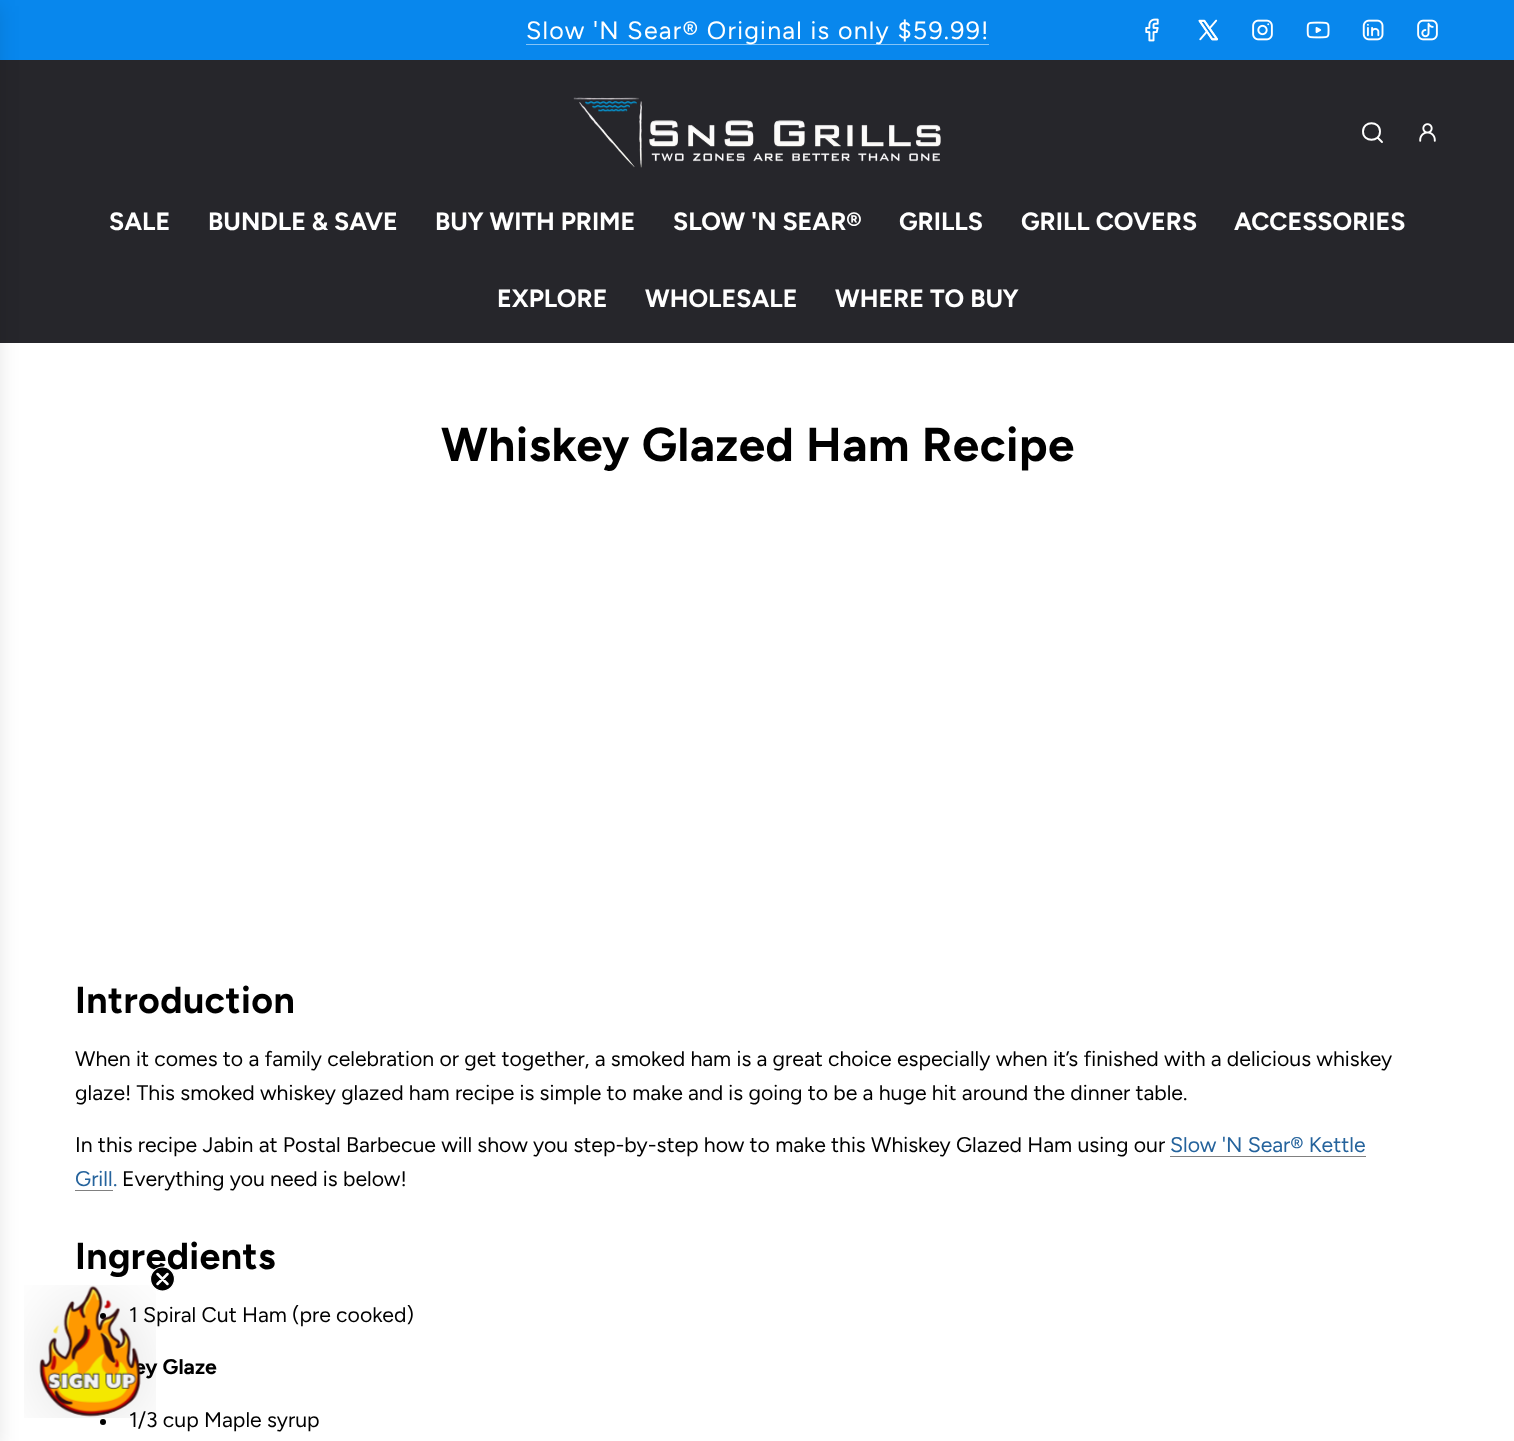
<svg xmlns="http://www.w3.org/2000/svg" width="1514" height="1441">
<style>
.a{font:25px Figtree;letter-spacing:1.25px;fill:#fff}
.b{font:bold 25px Figtree;fill:#fff}
.c{font:bold 47.5px Figtree;letter-spacing:0.5px;fill:#000}
.d{font:bold 37.5px Figtree;letter-spacing:0.4px;fill:#000}
.e{font:21.25px Figtree;fill:#000}
.f{font:21.25px Figtree;fill:#25639c}
.g{font:bold 21.25px Figtree;fill:#000}
</style>
<defs>
<clipPath id="clip1"><path d="M150 1266h25v25H150z"/></clipPath>
</defs>
<rect width="100%" height="100%" fill="#fff"/>
<path fill="#0887ed" d="M0 0h1514v60H0z"/>
<path fill="#84c3f6" d="M526 44h463v1H526z"/>
<image href="1.png" x="1145" y="18" width="14" height="24"/>
<image href="2.png" x="1198" y="19" width="20" height="22"/>
<image href="3.png" x="1252" y="19" width="21" height="22"/>
<image href="4.png" x="1306" y="21" width="24" height="18"/>
<image href="5.png" x="1362" y="19" width="22" height="22"/>
<image href="6.png" x="1417" y="19" width="21" height="22"/>
<path fill="#26262b" d="M0 60h1514v283H0z"/>
<path fill="#0000001a" filter="blur(9.5px)" d="M-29 6h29v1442H-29z"/>
<image href="7.png" x="573" y="97" width="368" height="71"/>
<path fill="none" stroke="#fff" stroke-width="1.9" stroke-linecap="round" stroke-linejoin="round" d="M1377.5 137.5l4.5 4.5m-19-10.5c0 11 17 11 17 0c0-11-17-11-17 0z"/>
<image href="8.png" x="1419" y="123" width="17" height="19"/>
<path fill="#808080" d="M1170 1156h196v1H1170z"/>
<path fill="#808080" d="M75 1190h38v1H75z"/>
<circle fill="#000" cx="103" cy="1316" r="3"/>
<circle fill="#000" cx="103" cy="1422" r="3"/>
<text class="a" x="526" y="39">Slow 'N Sear® Original is only $59.99!</text>
<text class="b" x="109" y="230">SALE</text>
<text class="b" x="208" y="230">BUNDLE &amp; SAVE</text>
<text class="b" x="435" y="230">BUY WITH PRIME</text>
<text class="b" x="673" y="230">SLOW 'N SEAR®</text>
<text class="b" x="899" y="230">GRILLS</text>
<text class="b" x="1021" y="230">GRILL COVERS</text>
<text class="b" x="1234" y="230">ACCESSORIES</text>
<text class="b" x="497" y="307">EXPLORE</text>
<text class="b" x="645" y="307">WHOLESALE</text>
<text class="b" x="835" y="307">WHERE TO BUY</text>
<text class="c" x="441" y="461">Whiskey Glazed Ham Recipe</text>
<text class="d" x="75" y="1013">Introduction</text>
<text class="e" x="75" y="1066">When it comes to a family celebration or get together, a smoked ham is a great choice especially when it’s finished with a delicious whiskey</text>
<text class="e" x="75" y="1100">glaze! This smoked whiskey glazed ham recipe is simple to make and is going to be a huge hit around the dinner table.</text>
<text class="e" x="75" y="1152">In this recipe Jabin at Postal Barbecue will show you step-by-step how to make this Whiskey Glazed Ham using our</text>
<text class="f" x="1170" y="1152">Slow 'N Sear® Kettle</text>
<text class="f" x="75" y="1186">Grill</text>
<text class="f" x="113" y="1186">.</text>
<text class="e" x="122" y="1186">Everything you need is below!</text>
<text class="d" x="75" y="1269">Ingredients</text>
<text class="e" x="129" y="1322">1 Spiral Cut Ham (pre cooked)</text>
<text class="g" x="134" y="1374">ey Glaze</text>
<text class="e" x="129" y="1427">1/3 cup Maple syrup</text>
<image href="9.png" x="24" y="1285" width="132" height="133"/>
<circle fill="#000" cx="162.5" cy="1279" r="12"/>
<g clip-path="url(#clip1)">
<circle fill="none" stroke="#fff" stroke-width="1.2" cx="162.5" cy="1279" r="12"/>
</g>
<path fill="none" stroke="#fff" stroke-width="2.5" stroke-linecap="round" stroke-linejoin="round" d="M157.5 1274l10 10m-10 0l10-10z"/>
</svg>
